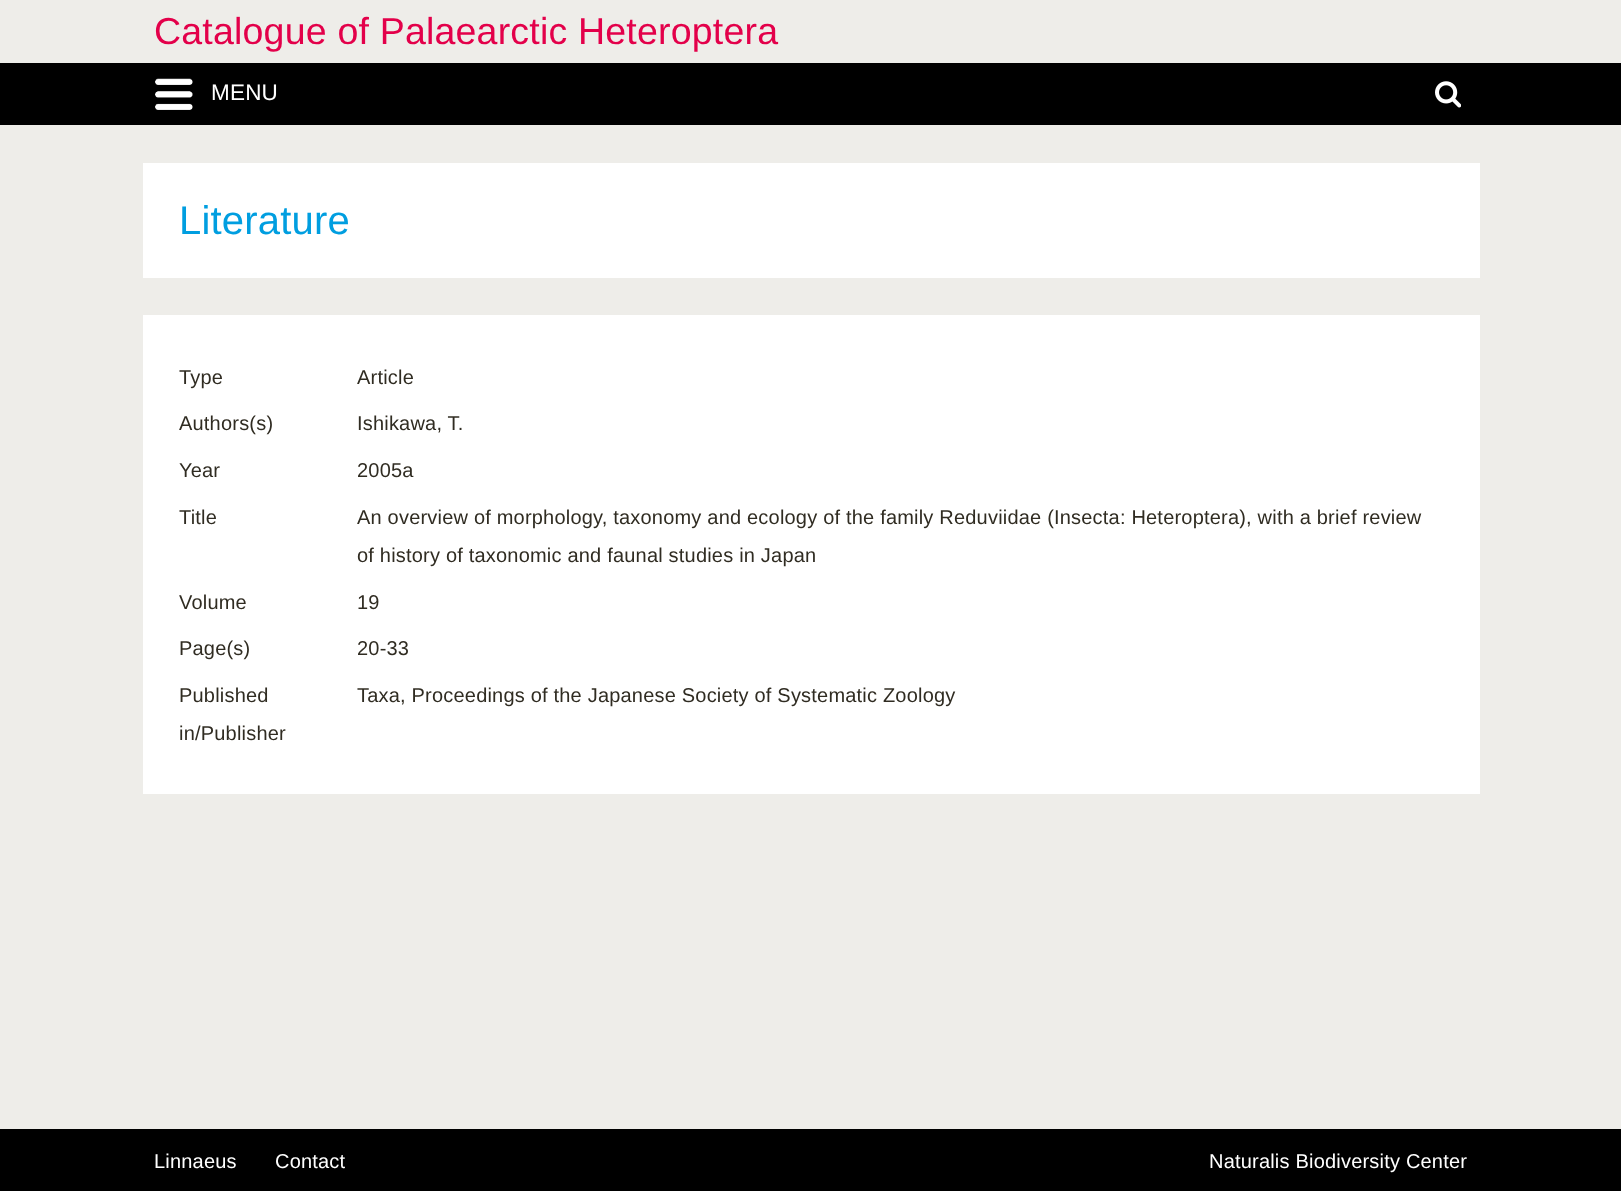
<svg xmlns="http://www.w3.org/2000/svg" width="1621" height="1191">
<style>
.a{font:37.5px Liberation Sans;letter-spacing:0.2px;fill:#e3004a}
.b{font:22.5px Liberation Sans;letter-spacing:0.2px;fill:#fff}
.c{font:40px Liberation Sans;letter-spacing:0.2px;fill:#009ee0}
.d{font:20px Liberation Sans;letter-spacing:0.2px;fill:#302c22}
.e{font:20px Liberation Sans;letter-spacing:0.2px;fill:#fff}
</style>
<rect width="100%" height="100%" fill="#eeede9"/>
<path fill="#000" d="M0 63h1621v62H0z"/>
<image href="1.png" x="155" y="78" width="38" height="32"/>
<image href="2.png" x="1435" y="81" width="26" height="27"/>
<path fill="#fff" d="M143 163h1337v115H143z"/>
<path fill="#fff" d="M143 315h1337v479H143z"/>
<path fill="#000" d="M0 1129h1621v62H0z"/>
<text class="a" x="154" y="44">Catalogue of Palaearctic Heteroptera</text>
<text class="b" x="211" y="100">MENU</text>
<text class="c" x="179" y="234">Literature</text>
<text class="d" x="179" y="384">Type</text>
<text class="d" x="357" y="384">Article</text>
<text class="d" x="179" y="430">Authors(s)</text>
<text class="d" x="357" y="430">Ishikawa, T.</text>
<text class="d" x="179" y="477">Year</text>
<text class="d" x="357" y="477">2005a</text>
<text class="d" x="179" y="524">Title</text>
<text class="d" x="357" y="524">An overview of morphology, taxonomy and ecology of the family Reduviidae (Insecta: Heteroptera), with a brief review</text>
<text class="d" x="357" y="562">of history of taxonomic and faunal studies in Japan</text>
<text class="d" x="179" y="609">Volume</text>
<text class="d" x="357" y="609">19</text>
<text class="d" x="179" y="655">Page(s)</text>
<text class="d" x="357" y="655">20-33</text>
<text class="d" x="179" y="702">Published</text>
<text class="d" x="179" y="740">in/Publisher</text>
<text class="d" x="357" y="702">Taxa, Proceedings of the Japanese Society of Systematic Zoology</text>
<text class="e" x="154" y="1168">Linnaeus</text>
<text class="e" x="275" y="1168">Contact</text>
<text class="e" x="1209" y="1168">Naturalis Biodiversity Center</text>
</svg>
